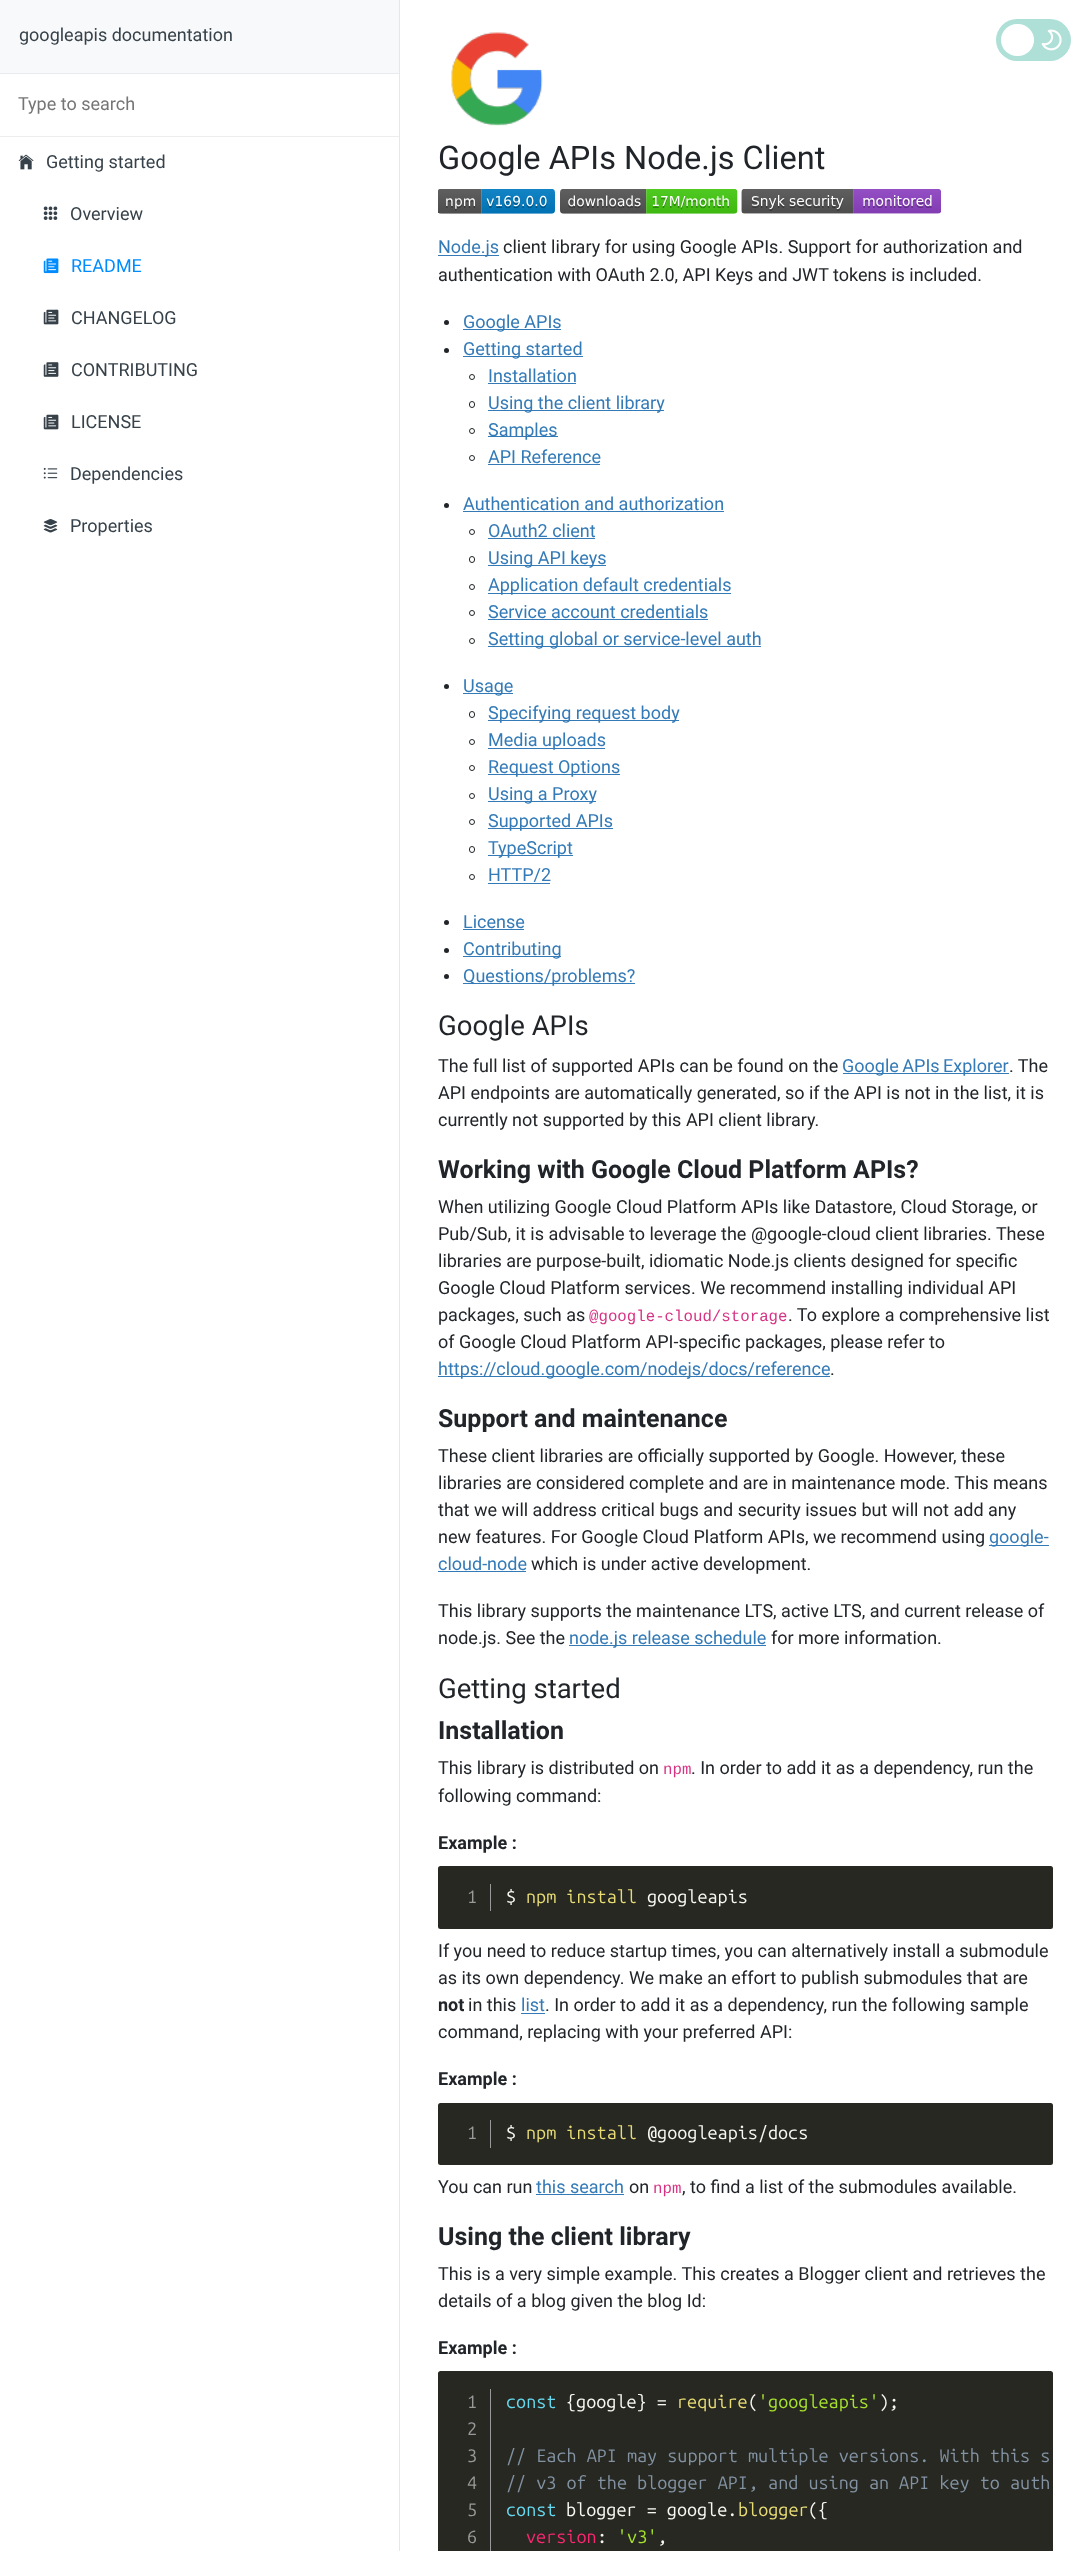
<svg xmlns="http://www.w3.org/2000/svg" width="1089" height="2551">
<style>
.a{font:18px Roboto;fill:#364149}
.b{font:18px Roboto;fill:#757575}
.c{font:18px Roboto;fill:#008cff}
.d{font:32.5px Roboto;fill:#212529}
.e{font:18px Roboto;fill:#337ab7}
.f{font:18px Roboto;fill:#212529}
.g{font:27.5px Roboto;fill:#212529}
.h{font:bold 25px Roboto;fill:#212529}
.i{font:15.75px Liberation Mono;fill:#d63384}
.j{font:bold 18px Roboto;fill:#212529}
.k{font:18px Ubuntu Mono;letter-spacing:-1px;fill:#999}
.l{font:18px Ubuntu Mono;fill:#f8f8f2}
.m{font:18px Ubuntu Mono;fill:#e6db74}
.n{font:18px Ubuntu Mono;fill:#66d9ef}
.o{font:18px Ubuntu Mono;fill:#a6e22e}
.p{font:18px Ubuntu Mono;fill:#8292a2}
.q{font:18px Ubuntu Mono;fill:#f92672}
</style>
<rect width="100%" height="100%" fill="#fff"/>
<rect fill="#aee0d7" x="996" y="19" width="75" height="42" rx="21"/>
<rect fill="#fff" x="1001" y="24" width="33" height="32" rx="16"/>
<image href="1.png" x="1041" y="29" width="21" height="22"/>
<path fill="#e7e7e7" d="M399 0h1v2551H399z"/>
<path fill="#f8f9fa" d="M0 0h399v73H0z"/>
<path fill="#e9ecef" d="M0 73h399v1H0z"/>
<path fill="#ededed" d="M0 136h399v1H0z"/>
<image href="2.png" x="18" y="154" width="16" height="16"/>
<image href="3.png" x="43" y="206" width="15" height="14"/>
<image href="4.png" x="43" y="258" width="16" height="16"/>
<image href="5.png" x="43" y="309" width="16" height="16"/>
<image href="6.png" x="43" y="362" width="16" height="15"/>
<image href="5.png" x="43" y="414" width="16" height="16"/>
<image href="7.png" x="43" y="467" width="15" height="12"/>
<image href="8.png" x="43" y="519" width="15" height="14"/>
<image href="9.png" x="451" y="32" width="92" height="94"/>
<image href="10.png" x="438" y="189" width="117" height="25"/>
<image href="11.png" x="560" y="189" width="178" height="25"/>
<image href="12.png" x="741" y="189" width="200" height="25"/>
<path fill="#337ab7" d="M438 255h61v1H438z"/>
<circle fill="#212529" cx="446.5" cy="322.5" r="2.5"/>
<path fill="#337ab7" d="M463 329h98v1H463z"/>
<circle fill="#212529" cx="446.5" cy="350.5" r="2.5"/>
<path fill="#337ab7" d="M463 356h120v1H463z"/>
<circle fill="none" stroke="#212529" cx="472" cy="377" r="2.5"/>
<path fill="#337ab7" d="M488 383h88v1H488z"/>
<rect fill="none" stroke="#212529" x="469.5" y="401.5" width="5" height="6" rx="2.5"/>
<path fill="#337ab7" d="M488 410h176v1H488z"/>
<circle fill="none" stroke="#212529" cx="472" cy="431" r="2.5"/>
<path fill="#337ab7" d="M488 436h70v1H488z"/>
<circle fill="none" stroke="#212529" cx="472" cy="458" r="2.5"/>
<path fill="#337ab7" d="M488 464h112v1H488z"/>
<circle fill="#212529" cx="446.5" cy="505.5" r="2.5"/>
<path fill="#337ab7" d="M463 511h261v1H463z"/>
<circle fill="none" stroke="#212529" cx="472" cy="532" r="2.5"/>
<path fill="#337ab7" d="M488 538h107v1H488z"/>
<rect fill="none" stroke="#212529" x="469.5" y="556.5" width="5" height="6" rx="2.5"/>
<path fill="#337ab7" d="M488 565h118v1H488z"/>
<circle fill="none" stroke="#212529" cx="472" cy="587" r="2.5"/>
<path fill="#337ab7" d="M488 593h243v1H488z"/>
<circle fill="none" stroke="#212529" cx="472" cy="613" r="2.5"/>
<path fill="#337ab7" d="M488 619h220v1H488z"/>
<circle fill="none" stroke="#212529" cx="472" cy="641" r="2.5"/>
<path fill="#337ab7" d="M488 646h273v1H488z"/>
<circle fill="#212529" cx="446.5" cy="686.5" r="2.5"/>
<path fill="#337ab7" d="M463 693h50v1H463z"/>
<rect fill="none" stroke="#212529" x="469.5" y="711.5" width="5" height="6" rx="2.5"/>
<path fill="#337ab7" d="M488 720h191v1H488z"/>
<circle fill="none" stroke="#212529" cx="472" cy="742" r="2.5"/>
<path fill="#337ab7" d="M488 748h117v1H488z"/>
<circle fill="none" stroke="#212529" cx="472" cy="768" r="2.5"/>
<path fill="#337ab7" d="M488 774h132v1H488z"/>
<circle fill="none" stroke="#212529" cx="472" cy="796" r="2.5"/>
<path fill="#337ab7" d="M488 801h108v1H488z"/>
<circle fill="none" stroke="#212529" cx="472" cy="822" r="2.5"/>
<path fill="#337ab7" d="M488 828h125v1H488z"/>
<rect fill="none" stroke="#212529" x="469.5" y="846.5" width="5" height="6" rx="2.5"/>
<path fill="#337ab7" d="M488 855h85v1H488z"/>
<circle fill="none" stroke="#212529" cx="472" cy="877" r="2.5"/>
<path fill="#337ab7" d="M488 883h62v1H488z"/>
<circle fill="#212529" cx="446.5" cy="922.5" r="2.5"/>
<path fill="#337ab7" d="M463 929h61v1H463z"/>
<circle fill="#212529" cx="446.5" cy="950.5" r="2.5"/>
<path fill="#337ab7" d="M463 956h98v1H463z"/>
<circle fill="#212529" cx="446.5" cy="976.5" r="2.5"/>
<path fill="#337ab7" d="M463 983h172v1H463z"/>
<path fill="#337ab7" d="M843 1073h166v1H843z"/>
<path fill="#337ab7" d="M438 1376h392v1H438z"/>
<path fill="#337ab7" d="M989 1545h60v1H989z"/>
<path fill="#337ab7" d="M438 1571h88v1H438z"/>
<path fill="#337ab7" d="M569 1645h197v1H569z"/>
<rect fill="#272822" x="438" y="1866" width="615" height="63" rx="2.5"/>
<path fill="#999" d="M490 1884h1v27H490z"/>
<path fill="#337ab7" d="M521 2013h24v1H521z"/>
<rect fill="#272822" x="438" y="2103" width="615" height="62" rx="2.5"/>
<path fill="#999" d="M490 2120h1v28H490z"/>
<path fill="#337ab7" d="M536 2194h88v1H536z"/>
<path fill="#272822" d="M440.5 2371h610c1.5 0 2.5 1 2.5 2.5v177.5h-615v-177.5c0-1.5 1-2.5 2.5-2.5z"/>
<path fill="#999" d="M490 2389h1v162H490z"/>
<text class="a" x="19" y="41">googleapis documentation</text>
<text class="b" x="18" y="110">Type to search</text>
<text class="a" x="46" y="168">Getting started</text>
<text class="a" x="70" y="220">Overview</text>
<text class="c" x="71" y="272">README</text>
<text class="a" x="71" y="324">CHANGELOG</text>
<text class="a" x="71" y="376">CONTRIBUTING</text>
<text class="a" x="71" y="428">LICENSE</text>
<text class="a" x="70" y="480">Dependencies</text>
<text class="a" x="70" y="532">Properties</text>
<text class="d" x="438" y="169">Google APIs Node.js Client</text>
<text class="e" x="438" y="253">Node.js</text>
<text class="f" x="503" y="253">client library for using Google APIs. Support for authorization and</text>
<text class="f" x="438" y="281">authentication with OAuth 2.0, API Keys and JWT tokens is included.</text>
<text class="e" x="463" y="328">Google APIs</text>
<text class="e" x="463" y="355">Getting started</text>
<text class="e" x="488" y="382">Installation</text>
<text class="e" x="488" y="409">Using the client library</text>
<text class="e" x="488" y="436">Samples</text>
<text class="e" x="488" y="463">API Reference</text>
<text class="e" x="463" y="510">Authentication and authorization</text>
<text class="e" x="488" y="537">OAuth2 client</text>
<text class="e" x="488" y="564">Using API keys</text>
<text class="e" x="488" y="591">Application default credentials</text>
<text class="e" x="488" y="618">Service account credentials</text>
<text class="e" x="488" y="645">Setting global or service-level auth</text>
<text class="e" x="463" y="692">Usage</text>
<text class="e" x="488" y="719">Specifying request body</text>
<text class="e" x="488" y="746">Media uploads</text>
<text class="e" x="488" y="773">Request Options</text>
<text class="e" x="488" y="800">Using a Proxy</text>
<text class="e" x="488" y="827">Supported APIs</text>
<text class="e" x="488" y="854">TypeScript</text>
<text class="e" x="488" y="881">HTTP/2</text>
<text class="e" x="463" y="928">License</text>
<text class="e" x="463" y="955">Contributing</text>
<text class="e" x="463" y="982">Questions/problems?</text>
<text class="g" x="438" y="1035">Google APIs</text>
<text class="f" x="438" y="1072">The full list of supported APIs can be found on the</text>
<text class="e" x="842" y="1072" word-spacing="-1">Google APIs Explorer</text>
<text class="f" x="1009" y="1072">. The</text>
<text class="f" x="438" y="1099">API endpoints are automatically generated, so if the API is not in the list, it is</text>
<text class="f" x="438" y="1126">currently not supported by this API client library.</text>
<text class="h" x="438" y="1178">Working with Google Cloud Platform APIs?</text>
<text class="f" x="438" y="1213">When utilizing Google Cloud Platform APIs like Datastore, Cloud Storage, or</text>
<text class="f" x="438" y="1240">Pub/Sub, it is advisable to leverage the @google-cloud client libraries. These</text>
<text class="f" x="438" y="1267">libraries are purpose-built, idiomatic Node.js clients designed for specific</text>
<text class="f" x="438" y="1294">Google Cloud Platform services. We recommend installing individual API</text>
<text class="f" x="438" y="1321">packages, such as</text>
<text class="i" x="589" y="1321">@google-cloud/storage</text>
<text class="f" x="788" y="1321">. To explore a comprehensive list</text>
<text class="f" x="438" y="1348">of Google Cloud Platform API-specific packages, please refer to</text>
<text class="e" x="438" y="1375">https://cloud.google.com/nodejs/docs/reference</text>
<text class="f" x="830" y="1375">.</text>
<text class="h" x="438" y="1427">Support and maintenance</text>
<text class="f" x="438" y="1462">These client libraries are officially supported by Google. However, these</text>
<text class="f" x="438" y="1489">libraries are considered complete and are in maintenance mode. This means</text>
<text class="f" x="438" y="1516">that we will address critical bugs and security issues but will not add any</text>
<text class="f" x="438" y="1543">new features. For Google Cloud Platform APIs, we recommend using</text>
<text class="e" x="989" y="1543">google-</text>
<text class="e" x="438" y="1570">cloud-node</text>
<text class="f" x="531" y="1570">which is under active development.</text>
<text class="f" x="438" y="1617">This library supports the maintenance LTS, active LTS, and current release of</text>
<text class="f" x="438" y="1644">node.js. See the</text>
<text class="e" x="569" y="1644">node.js release schedule</text>
<text class="f" x="771" y="1644">for more information.</text>
<text class="g" x="438" y="1698">Getting started</text>
<text class="h" x="438" y="1739">Installation</text>
<text class="f" x="438" y="1774">This library is distributed on</text>
<text class="i" x="663" y="1774">npm</text>
<text class="f" x="691" y="1774">. In order to add it as a dependency, run the</text>
<text class="f" x="438" y="1802">following command:</text>
<text class="j" x="438" y="1849">Example :</text>
<text class="k" x="467" y="1903">1</text>
<text class="l" x="506" y="1903">$</text>
<text class="m" x="526" y="1903">npm install</text>
<text class="l" x="647" y="1903">googleapis</text>
<text class="f" x="438" y="1957">If you need to reduce startup times, you can alternatively install a submodule</text>
<text class="f" x="438" y="1984">as its own dependency. We make an effort to publish submodules that are</text>
<text class="j" x="438" y="2011">not</text>
<text class="f" x="468" y="2011">in this</text>
<text class="e" x="521" y="2011">list</text>
<text class="f" x="545" y="2011">. In order to add it as a dependency, run the following sample</text>
<text class="f" x="438" y="2038">command, replacing with your preferred API:</text>
<text class="j" x="438" y="2085">Example :</text>
<text class="k" x="467" y="2139">1</text>
<text class="l" x="506" y="2139">$</text>
<text class="m" x="526" y="2139">npm install</text>
<text class="l" x="647" y="2139">@googleapis/docs</text>
<text class="f" x="438" y="2193">You can run</text>
<text class="e" x="536" y="2193">this search</text>
<text class="f" x="629" y="2193">on</text>
<text class="i" x="653" y="2193">npm</text>
<text class="f" x="682" y="2193">, to find a list of the submodules available.</text>
<text class="h" x="438" y="2245">Using the client library</text>
<text class="f" x="438" y="2280">This is a very simple example. This creates a Blogger client and retrieves the</text>
<text class="f" x="438" y="2307">details of a blog given the blog Id:</text>
<text class="j" x="438" y="2354">Example :</text>
<text class="k" x="467" y="2408">1</text>
<text class="k" x="467" y="2435">2</text>
<text class="k" x="467" y="2462">3</text>
<text class="k" x="467" y="2489">4</text>
<text class="k" x="467" y="2516">5</text>
<text class="k" x="467" y="2543">6</text>
<text class="n" x="506" y="2408">const</text>
<text class="l" x="566" y="2408">{google} =</text>
<text class="m" x="677" y="2408">require</text>
<text class="l" x="748" y="2408">(</text>
<text class="o" x="758" y="2408">'googleapis'</text>
<text class="l" x="879" y="2408">);</text>
<text class="p" x="506" y="2462">// Each API may support multiple versions. With this s</text>
<text class="p" x="506" y="2489">// v3 of the blogger API, and using an API key to auth</text>
<text class="n" x="506" y="2516">const</text>
<text class="l" x="566" y="2516">blogger = google.</text>
<text class="m" x="738" y="2516">blogger</text>
<text class="l" x="808" y="2516">({</text>
<text class="q" x="526" y="2543">version</text>
<text class="l" x="597" y="2543">:</text>
<text class="o" x="617" y="2543">'v3'</text>
<text class="l" x="657" y="2543">,</text>
</svg>
